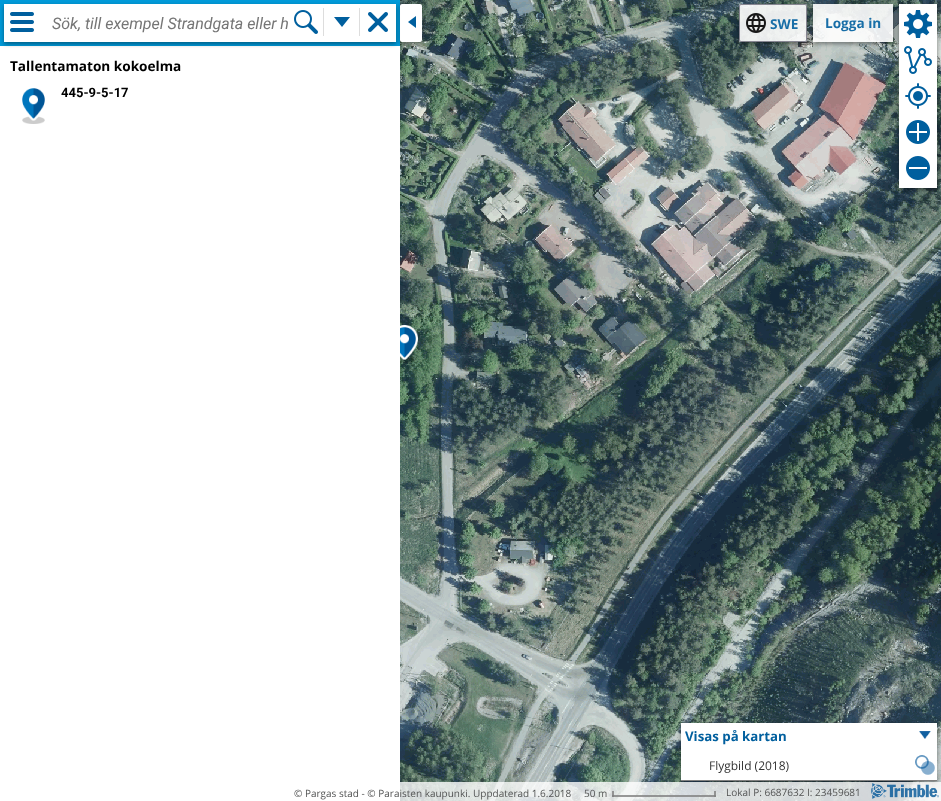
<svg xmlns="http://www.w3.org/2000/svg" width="941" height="801">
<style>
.a{font:italic 16px Roboto;fill:#757575}
.b{font:bold 13.6px Open Sans;fill:#186ea7}
.c{font:bold 13.6px Open Sans;fill:#000}
.d{font:bold 13px Roboto;fill:#000}
.e{font:bold 13.25px Open Sans;fill:#005f9e}
.f{font:12px Open Sans;fill:#333}
.g{font:10px Open Sans;fill:#545555}
</style>
<defs>
<clipPath id="clip1"><path d="M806 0h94v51h-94zm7 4h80v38h-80z" clip-rule="evenodd"/></clipPath>
<clipPath id="clip2"><path d="M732 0h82v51h-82zm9 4h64c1 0 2 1 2 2v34c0 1-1 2-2 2h-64c-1 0-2-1-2-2v-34c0-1 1-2 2-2z" clip-rule="evenodd"/></clipPath>
</defs>
<rect width="100%" height="100%" fill="#fff"/>
<image href="1.png" x="400" y="0" width="133" height="177"/>
<image href="2.png" x="533" y="0" width="256" height="177"/>
<image href="3.png" x="789" y="0" width="152" height="177"/>
<image href="4.png" x="400" y="177" width="133" height="256"/>
<image href="5.png" x="533" y="177" width="256" height="256"/>
<image href="6.png" x="789" y="177" width="152" height="256"/>
<image href="7.png" x="400" y="433" width="133" height="256"/>
<image href="8.png" x="533" y="433" width="256" height="256"/>
<image href="9.png" x="789" y="433" width="152" height="256"/>
<image href="10.png" x="400" y="689" width="133" height="112"/>
<image href="11.png" x="533" y="689" width="256" height="112"/>
<image href="12.png" x="789" y="689" width="152" height="112"/>
<image href="13.png" x="400" y="325" width="18" height="38"/>
<path fill="#009ad9" d="M0 0h400v46H0z"/>
<rect fill="#0000004d" filter="blur(2px)" x="400" y="5" width="22" height="38" rx="2"/>
<rect fill="#fff" x="400" y="4" width="22" height="38" rx="2"/>
<path fill="#00000066" filter="blur(2px)" d="M4 6h392v38H4z"/>
<path fill="#fff" d="M4 4h392v38H4z"/>
<image href="14.png" x="10" y="12" width="24" height="20"/>
<image href="15.png" x="294" y="10" width="24" height="24"/>
<path fill="#ddd" d="M323 8h1v28H323z"/>
<image href="16.png" x="334" y="17" width="16" height="10"/>
<path fill="#ddd" d="M359 8h1v28H359z"/>
<image href="17.png" x="368" y="12" width="20" height="20"/>
<g clip-path="url(#clip1)">
<path fill="#00000066" filter="blur(2px)" d="M813 6h80v38H813z"/>
</g>
<path fill="#ffffffe6" d="M813 4h80v38H813z"/>
<g clip-path="url(#clip2)">
<rect fill="#0000005c" filter="blur(2px)" x="739" y="6" width="68" height="38" rx="2"/>
</g>
<rect fill="#ffffffe6" x="739" y="4" width="68" height="38" rx="2"/>
<image href="18.png" x="746" y="13" width="20" height="20"/>
<rect fill="none" stroke="#7b7a86e6" x="739.5" y="4.5" width="67" height="37" rx="1.5"/>
<path fill="#00000066" filter="blur(2px)" d="M899 6h38v184H899z"/>
<path fill="#fff" d="M899 4h38v184H899z"/>
<image href="19.png" x="904" y="10" width="28" height="28"/>
<image href="20.png" x="904" y="46" width="28" height="28"/>
<image href="21.png" x="905" y="83" width="26" height="26"/>
<image href="22.png" x="906" y="120" width="24" height="24"/>
<image href="23.png" x="906" y="156" width="24" height="24"/>
<image href="24.png" x="408" y="16" width="8" height="12"/>
<image href="25.png" x="22" y="88" width="23" height="36"/>
<path fill="#00000066" filter="blur(2px)" d="M681 725h256v58H681z"/>
<path fill="#fff" d="M681 723h256v57H681z"/>
<image href="26.png" x="919" y="731" width="12" height="8"/>
<path fill="#808080" d="M681 780h256v1H681z"/>
<image href="27.png" x="915" y="755" width="20" height="20"/>
<path fill="#ffffffcc" d="M400 782h541v19H400z"/>
<path fill="#808080cc" d="M714 791h2v6H714z"/>
<path fill="#808080cc" d="M612 795h104v2H612z"/>
<path fill="#808080cc" d="M612 791h2v6H612z"/>
<image href="28.png" x="871" y="783" width="68" height="16"/>
<text class="a" x="52" y="29">Sök, till exempel Strandgata eller h</text>
<text class="b" x="770" y="29">SWE</text>
<text class="b" x="825" y="28">Logga in</text>
<text class="c" x="10" y="71">Tallentamaton kokoelma</text>
<text class="d" x="61" y="97">445-9-5-17</text>
<text class="e" x="685" y="741">Visas på kartan</text>
<text class="f" x="709" y="770">Flygbild (2018)</text>
<text class="g" x="294" y="797">© Pargas stad - © Paraisten kaupunki. Uppdaterad 1.6.2018</text>
<text class="g" x="584" y="797">50 m</text>
<text class="g" x="726" y="796">Lokal P: 6687632 I: 23459681</text>
</svg>
